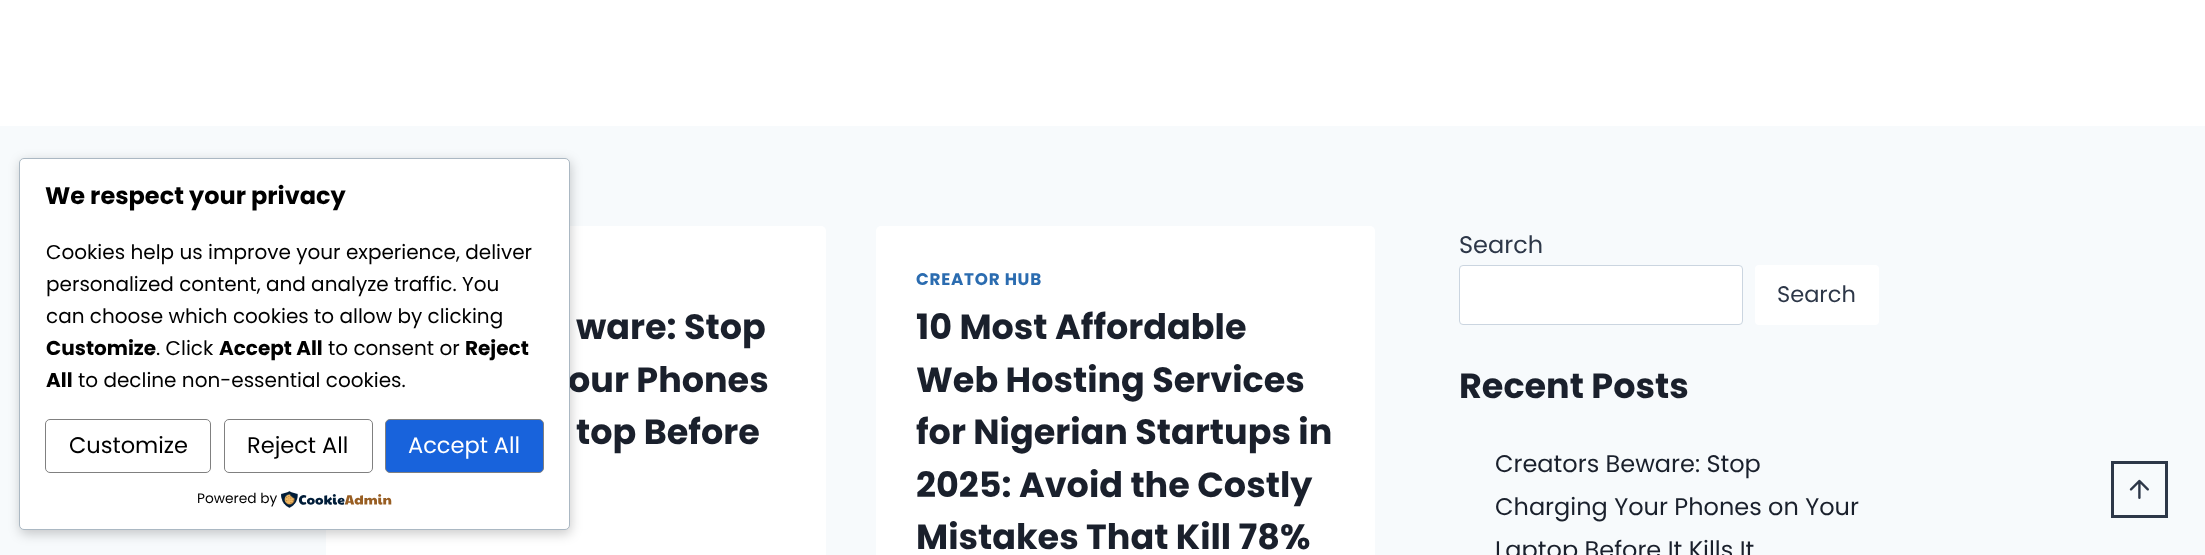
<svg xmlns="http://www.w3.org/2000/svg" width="2205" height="555">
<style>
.a{font:bold 35px Poppins;fill:#1a202c}
.b{font:13.75px Poppins;fill:#000}
.c{font:22.5px Poppins;fill:#fff}
.d{font:22.5px Poppins;fill:#000}
.e{font:20px Poppins;fill:#000}
.f{font:bold 20px Poppins;fill:#000}
.g{font:bold 24px Poppins;fill:#000}
.h{font:bold 16.75px Poppins;letter-spacing:0.75px;fill:#2b6cb0}
.i{font:24px Poppins;fill:#2d3748}
.j{font:22.5px Poppins;fill:#2d3748}
.k{font:24px Poppins;fill:#1a202c}
</style>
<rect width="100%" height="100%" fill="#f7fafc"/>
<rect fill="#fff" x="326" y="226" width="500" height="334" rx="5"/>
<rect fill="#00000033" filter="blur(6px)" x="20" y="161" width="551" height="373" rx="5"/>
<path fill="#fff" d="M0 0h2205v126H0z"/>
<rect fill="#fff" x="876" y="226" width="499" height="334" rx="5"/>
<rect fill="#fff" stroke="#cbd5e0" x="1459.5" y="265.5" width="283" height="59" rx="3.5"/>
<rect fill="#fff" x="1755" y="265" width="124" height="60" rx="4"/>
<path fill="none" stroke="#2d3748" stroke-width="3" d="M2112.5 462.5h54v54H2112.5z"/>
<image href="2.png" x="2129" y="479" width="20" height="20"/>
<text class="a" x="576" y="339">ware: Stop</text>
<text class="a" x="568" y="392">our Phones</text>
<rect fill="#fff" stroke="#abb8c3" x="19.5" y="158.5" width="550" height="371" rx="4.5"/>
<image href="1.png" x="281" y="491" width="111" height="17"/>
<text class="b" x="197" y="503">Powered by</text>
<rect fill="#1863dc" stroke="#808080" x="385.5" y="419.5" width="158" height="53" rx="4.5"/>
<text class="c" x="408" y="453">Accept All</text>
<rect fill="none" stroke="#808080" x="224.5" y="419.5" width="148" height="53" rx="4.5"/>
<text class="d" x="247" y="453">Reject All</text>
<rect fill="none" stroke="#808080" x="45.5" y="419.5" width="165" height="53" rx="4.5"/>
<text class="d" x="69" y="453">Customize</text>
<text class="e" x="78" y="387">to decline non-essential cookies.</text>
<text class="f" x="46" y="387">All</text>
<text class="f" x="465" y="355">Reject</text>
<text class="e" x="328" y="355">to consent or</text>
<text class="f" x="219" y="355">Accept All</text>
<text class="e" x="156" y="355">. Click</text>
<text class="f" x="46" y="355">Customize</text>
<text class="e" x="46" y="323">can choose which cookies to allow by clicking</text>
<text class="e" x="46" y="291">personalized content, and analyze traffic. You</text>
<text class="e" x="46" y="259">Cookies help us improve your experience, deliver</text>
<text class="g" x="45" y="204">We respect your privacy</text>
<text class="a" x="576" y="444">top Before</text>
<text class="h" x="916" y="285">CREATOR HUB</text>
<text class="a" x="916" y="339">10 Most Affordable</text>
<text class="a" x="916" y="392">Web Hosting Services</text>
<text class="a" x="916" y="444">for Nigerian Startups in</text>
<text class="a" x="916" y="497">2025: Avoid the Costly</text>
<text class="a" x="916" y="549">Mistakes That Kill 78%</text>
<text class="i" x="1459" y="253">Search</text>
<text class="j" x="1777" y="302">Search</text>
<text class="a" x="1459" y="398">Recent Posts</text>
<text class="k" x="1495" y="472">Creators Beware: Stop</text>
<text class="k" x="1495" y="515">Charging Your Phones on Your</text>
<text class="k" x="1495" y="558">Laptop Before It Kills It</text>
</svg>
